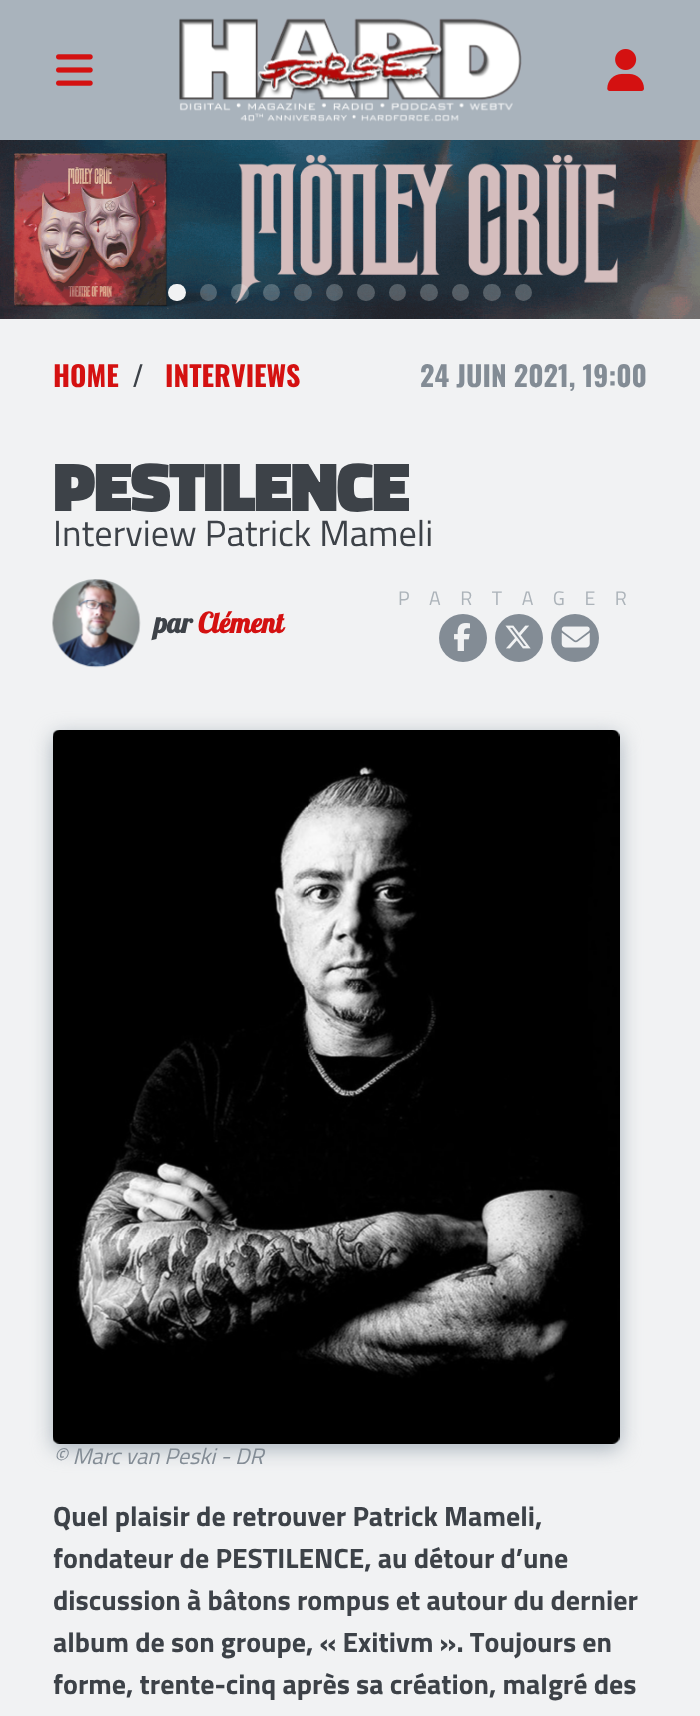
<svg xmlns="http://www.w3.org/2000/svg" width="700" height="1716">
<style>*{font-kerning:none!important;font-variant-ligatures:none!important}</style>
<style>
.a{font:bold 28px Oswald;fill:#d41111}
.b{font:bold 28px Oswald;fill:#3d4248}
.c{font:bold 28px Oswald;fill:#838c95}
.d{font:900 70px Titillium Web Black;letter-spacing:-2px;fill:#3d4248}
.e{font:36.4px Titillium Web;fill:#3d4248}
.f{font:19.6px Titillium Web;letter-spacing:19.5px;fill:#acb3b9}
.g{font:bold 28px Lobster;fill:#3d4248}
.h{font:bold 28px Lobster;fill:#d41111}
.i{font:italic 22.5px Titillium Web;fill:#838c95}
.j{font:bold 28px Titillium Web;fill:#3d4248}
</style>
<rect width="100%" height="100%" fill="#a9b3bc"/>
<image href="1.png" x="56" y="54" width="37" height="32"/>
<image href="2.png" x="179" y="18" width="343" height="104"/>
<image href="3.png" x="607" y="49" width="37" height="42"/>
<image href="4.png" x="0" y="140" width="700" height="179"/>
<rect fill="#f1f2f3" x="168" y="284" width="18" height="17" rx="8.5"/>
<circle fill="#f1f2f340" cx="208.5" cy="292.5" r="8.5"/>
<rect fill="#f1f2f340" x="231" y="284" width="18" height="17" rx="8.5"/>
<circle fill="#f1f2f340" cx="271.5" cy="292.5" r="8.5"/>
<rect fill="#f1f2f340" x="294" y="284" width="18" height="17" rx="8.5"/>
<circle fill="#f1f2f340" cx="334.5" cy="292.5" r="8.5"/>
<rect fill="#f1f2f340" x="357" y="284" width="18" height="17" rx="8.5"/>
<circle fill="#f1f2f340" cx="397.5" cy="292.5" r="8.5"/>
<rect fill="#f1f2f340" x="420" y="284" width="18" height="17" rx="8.5"/>
<circle fill="#f1f2f340" cx="460.5" cy="292.5" r="8.5"/>
<rect fill="#f1f2f340" x="483" y="284" width="18" height="17" rx="8.5"/>
<circle fill="#f1f2f340" cx="523.5" cy="292.5" r="8.5"/>
<path fill="#f1f2f3" d="M0 319h700v1397H0z"/>
<circle fill="#838c95" cx="463" cy="638" r="24"/>
<image href="5.png" x="454" y="623" width="16" height="28"/>
<circle fill="#838c95" cx="519" cy="638" r="24"/>
<image href="6.png" x="505" y="625" width="26" height="24"/>
<circle fill="#838c95" cx="575" cy="638" r="24"/>
<image href="7.png" x="561" y="626" width="29" height="22"/>
<image href="8.png" x="52" y="579" width="89" height="89"/>
<rect fill="#a9b3bc" filter="blur(10px)" x="53" y="735" width="567" height="714" rx="7"/>
<image href="9.png" x="53" y="730" width="567" height="714"/>
<text class="a" x="53" y="387">HOME</text>
<text class="b" x="132" y="387">/</text>
<text class="a" x="165" y="387">INTERVIEWS</text>
<text class="c" x="420" y="387">24 JUIN 2021, 19:00</text>
<text class="d" x="53" y="511">PESTILENCE</text>
<text class="e" x="53" y="546">Interview Patrick Mameli</text>
<text class="f" x="398" y="605">PARTAGER</text>
<text class="g" x="154" y="633">par</text>
<text class="h" x="198" y="633">Clément</text>
<text class="i" x="53" y="1464">© Marc van Peski - DR</text>
<text class="j" x="53" y="1526">Quel plaisir de retrouver Patrick Mameli,</text>
<text class="j" x="53" y="1568">fondateur de PESTILENCE, au détour d’une</text>
<text class="j" x="53" y="1610">discussion à bâtons rompus et autour du dernier</text>
<text class="j" x="53" y="1652">album de son groupe, « Exitivm ». Toujours en</text>
<text class="j" x="53" y="1694">forme, trente-cinq après sa création, malgré des</text>
</svg>
